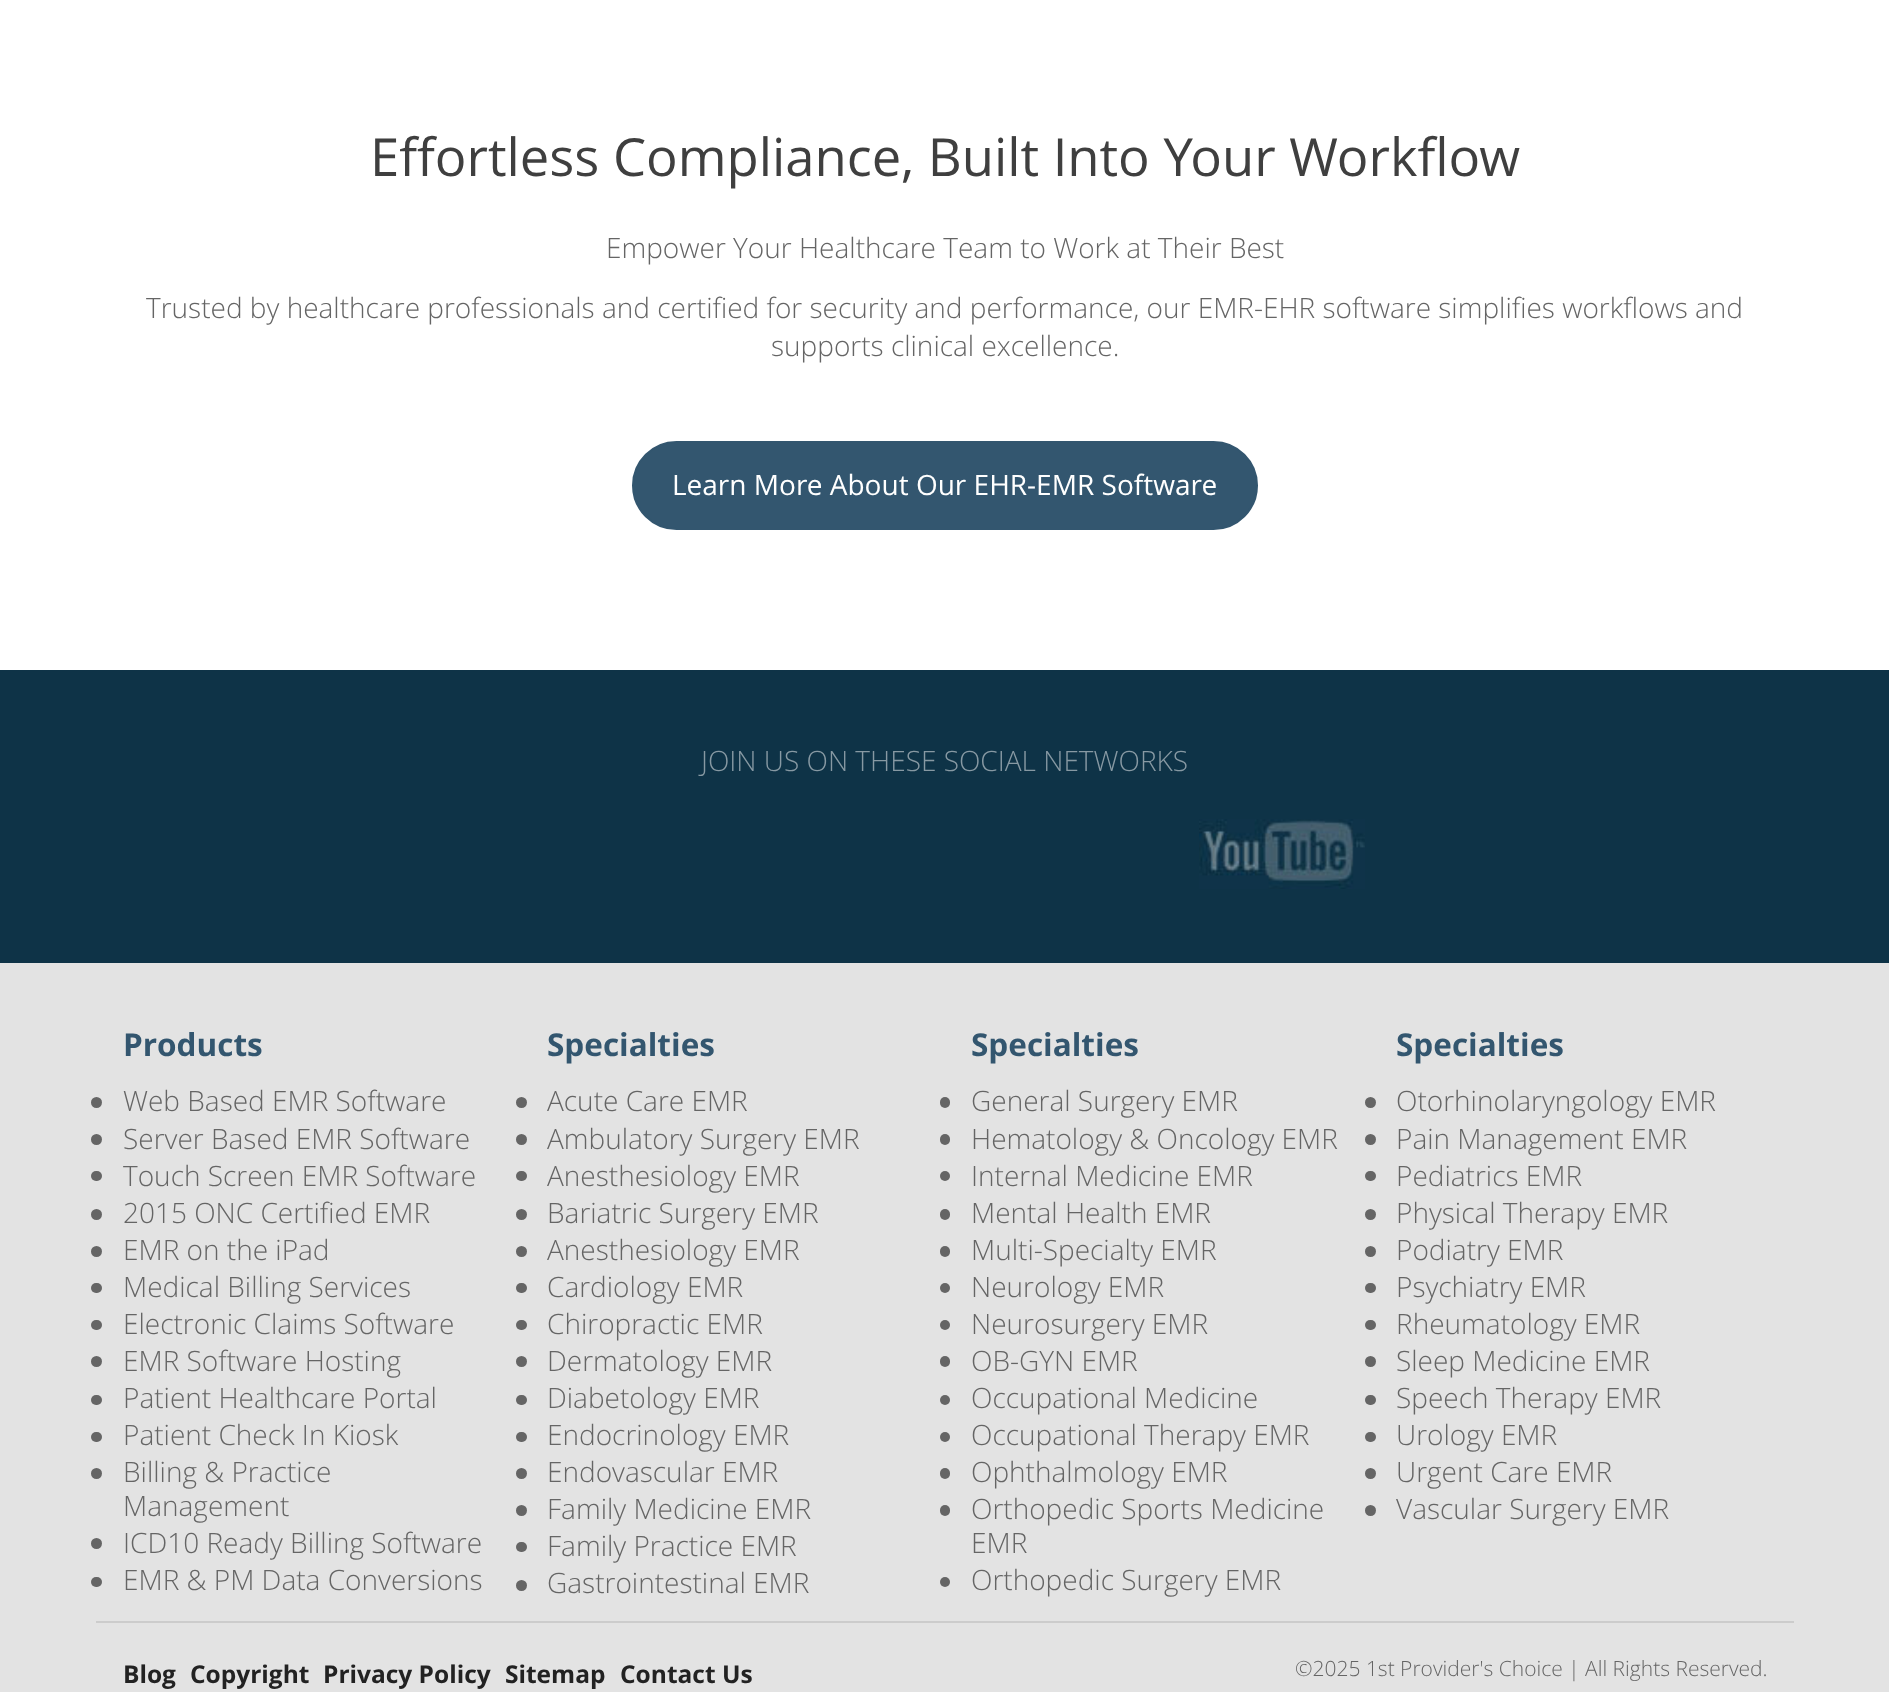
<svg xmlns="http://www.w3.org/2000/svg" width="1889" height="1692">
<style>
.a{font:52.5px Open Sans;fill:#3f3f3f}
.b{font:300 28px Open Sans;fill:#656565}
.c{font:28px Open Sans;fill:#fff}
.d{font:300 28px Open Sans;fill:#8799a3}
.e{font:bold 31.5px Open Sans;fill:#33566f}
.f{font:bold 24.5px Open Sans;fill:#222}
.g{font:300 21px Open Sans;fill:#656565}
</style>
<rect width="100%" height="100%" fill="#fff"/>
<rect fill="#33566f" stroke="#33566f" stroke-width="2" x="633" y="442" width="624" height="87" rx="43.5"/>
<path fill="#0e3347" d="M0 670h1889v293H0z"/>
<image href="1.png" x="1199" y="819" width="166" height="70"/>
<path fill="#e3e3e3" d="M0 963h1889v729H0z"/>
<circle fill="#656565" cx="96.5" cy="1102.5" r="5.5"/>
<circle fill="#656565" cx="96.5" cy="1139.5" r="5.5"/>
<rect fill="#656565" x="91" y="1171" width="11" height="10" rx="5"/>
<circle fill="#656565" cx="96.5" cy="1214.5" r="5.5"/>
<circle fill="#656565" cx="96.5" cy="1251.5" r="5.5"/>
<rect fill="#656565" x="91" y="1283" width="11" height="10" rx="5"/>
<rect fill="#656565" x="91" y="1320" width="11" height="10" rx="5"/>
<circle fill="#656565" cx="96.5" cy="1361.5" r="5.5"/>
<rect fill="#656565" x="91" y="1395" width="11" height="10" rx="5"/>
<rect fill="#656565" x="91" y="1432" width="11" height="10" rx="5"/>
<circle fill="#656565" cx="96.5" cy="1473.5" r="5.5"/>
<circle fill="#656565" cx="96.5" cy="1543.5" r="5.5"/>
<rect fill="#656565" x="91" y="1577" width="11" height="10" rx="5"/>
<circle fill="#656565" cx="521.5" cy="1102.5" r="5.5"/>
<circle fill="#656565" cx="521.5" cy="1139.5" r="5.5"/>
<rect fill="#656565" x="516" y="1171" width="11" height="10" rx="5"/>
<circle fill="#656565" cx="521.5" cy="1214.5" r="5.5"/>
<circle fill="#656565" cx="521.5" cy="1251.5" r="5.5"/>
<rect fill="#656565" x="516" y="1283" width="11" height="10" rx="5"/>
<rect fill="#656565" x="516" y="1320" width="11" height="10" rx="5"/>
<circle fill="#656565" cx="521.5" cy="1361.5" r="5.5"/>
<rect fill="#656565" x="516" y="1395" width="11" height="10" rx="5"/>
<rect fill="#656565" x="516" y="1432" width="11" height="10" rx="5"/>
<circle fill="#656565" cx="521.5" cy="1473.5" r="5.5"/>
<circle fill="#656565" cx="521.5" cy="1510.5" r="5.5"/>
<rect fill="#656565" x="516" y="1542" width="11" height="10" rx="5"/>
<circle fill="#656565" cx="521.5" cy="1585.5" r="5.5"/>
<rect fill="#656565" x="940" y="1097" width="10" height="11" rx="5"/>
<rect fill="#656565" x="940" y="1134" width="10" height="11" rx="5"/>
<circle fill="#656565" cx="945" cy="1176" r="5"/>
<rect fill="#656565" x="940" y="1209" width="10" height="11" rx="5"/>
<rect fill="#656565" x="940" y="1246" width="10" height="11" rx="5"/>
<circle fill="#656565" cx="945" cy="1288" r="5"/>
<circle fill="#656565" cx="945" cy="1325" r="5"/>
<rect fill="#656565" x="940" y="1356" width="10" height="11" rx="5"/>
<circle fill="#656565" cx="945" cy="1400" r="5"/>
<circle fill="#656565" cx="945" cy="1437" r="5"/>
<rect fill="#656565" x="940" y="1468" width="10" height="11" rx="5"/>
<rect fill="#656565" x="940" y="1505" width="10" height="11" rx="5"/>
<circle fill="#656565" cx="945" cy="1582" r="5"/>
<circle fill="#656565" cx="1370.5" cy="1102.5" r="5.5"/>
<circle fill="#656565" cx="1370.5" cy="1139.5" r="5.5"/>
<rect fill="#656565" x="1365" y="1171" width="11" height="10" rx="5"/>
<circle fill="#656565" cx="1370.5" cy="1214.5" r="5.5"/>
<circle fill="#656565" cx="1370.5" cy="1251.5" r="5.5"/>
<rect fill="#656565" x="1365" y="1283" width="11" height="10" rx="5"/>
<rect fill="#656565" x="1365" y="1320" width="11" height="10" rx="5"/>
<circle fill="#656565" cx="1370.5" cy="1361.5" r="5.5"/>
<rect fill="#656565" x="1365" y="1395" width="11" height="10" rx="5"/>
<rect fill="#656565" x="1365" y="1432" width="11" height="10" rx="5"/>
<circle fill="#656565" cx="1370.5" cy="1473.5" r="5.5"/>
<circle fill="#656565" cx="1370.5" cy="1510.5" r="5.5"/>
<path fill="#ccc" d="M96 1621h1698v2H96z"/>
<text class="a" x="370" y="176">Effortless Compliance, Built Into Your Workflow</text>
<text class="b" x="606" y="258">Empower Your Healthcare Team to Work at Their Best</text>
<text class="b" x="146" y="318">Trusted by healthcare professionals and certified for security and performance, our EMR-EHR software simplifies workflows and</text>
<text class="b" x="771" y="356">supports clinical excellence.</text>
<text class="c" x="672" y="495">Learn More About Our EHR-EMR Software</text>
<text class="d" x="701" y="771">JOIN US ON THESE SOCIAL NETWORKS</text>
<text class="e" x="123" y="1056">Products</text>
<text class="b" x="123" y="1111">Web Based EMR Software</text>
<text class="b" x="123" y="1149">Server Based EMR Software</text>
<text class="b" x="123" y="1186">Touch Screen EMR Software</text>
<text class="b" x="123" y="1223">2015 ONC Certified EMR</text>
<text class="b" x="123" y="1260">EMR on the iPad</text>
<text class="b" x="123" y="1297">Medical Billing Services</text>
<text class="b" x="123" y="1334">Electronic Claims Software</text>
<text class="b" x="123" y="1371">EMR Software Hosting</text>
<text class="b" x="123" y="1408">Patient Healthcare Portal</text>
<text class="b" x="123" y="1445">Patient Check In Kiosk</text>
<text class="b" x="123" y="1482">Billing &amp; Practice</text>
<text class="b" x="123" y="1516">Management</text>
<text class="b" x="123" y="1553">ICD10 Ready Billing Software</text>
<text class="b" x="123" y="1590">EMR &amp; PM Data Conversions</text>
<text class="e" x="547" y="1056">Specialties</text>
<text class="b" x="547" y="1111">Acute Care EMR</text>
<text class="b" x="547" y="1149">Ambulatory Surgery EMR</text>
<text class="b" x="547" y="1186">Anesthesiology EMR</text>
<text class="b" x="547" y="1223">Bariatric Surgery EMR</text>
<text class="b" x="547" y="1260">Anesthesiology EMR</text>
<text class="b" x="547" y="1297">Cardiology EMR</text>
<text class="b" x="547" y="1334">Chiropractic EMR</text>
<text class="b" x="547" y="1371">Dermatology EMR</text>
<text class="b" x="547" y="1408">Diabetology EMR</text>
<text class="b" x="547" y="1445">Endocrinology EMR</text>
<text class="b" x="547" y="1482">Endovascular EMR</text>
<text class="b" x="547" y="1519">Family Medicine EMR</text>
<text class="b" x="547" y="1556">Family Practice EMR</text>
<text class="b" x="547" y="1593">Gastrointestinal EMR</text>
<text class="e" x="971" y="1056">Specialties</text>
<text class="b" x="971" y="1111">General Surgery EMR</text>
<text class="b" x="971" y="1149">Hematology &amp; Oncology EMR</text>
<text class="b" x="971" y="1186">Internal Medicine EMR</text>
<text class="b" x="971" y="1223">Mental Health EMR</text>
<text class="b" x="971" y="1260">Multi-Specialty EMR</text>
<text class="b" x="971" y="1297">Neurology EMR</text>
<text class="b" x="971" y="1334">Neurosurgery EMR</text>
<text class="b" x="971" y="1371">OB-GYN EMR</text>
<text class="b" x="971" y="1408">Occupational Medicine</text>
<text class="b" x="971" y="1445">Occupational Therapy EMR</text>
<text class="b" x="971" y="1482">Ophthalmology EMR</text>
<text class="b" x="971" y="1519">Orthopedic Sports Medicine</text>
<text class="b" x="971" y="1553">EMR</text>
<text class="b" x="971" y="1590">Orthopedic Surgery EMR</text>
<text class="e" x="1396" y="1056">Specialties</text>
<text class="b" x="1396" y="1111">Otorhinolaryngology EMR</text>
<text class="b" x="1396" y="1149">Pain Management EMR</text>
<text class="b" x="1396" y="1186">Pediatrics EMR</text>
<text class="b" x="1396" y="1223">Physical Therapy EMR</text>
<text class="b" x="1396" y="1260">Podiatry EMR</text>
<text class="b" x="1396" y="1297">Psychiatry EMR</text>
<text class="b" x="1396" y="1334">Rheumatology EMR</text>
<text class="b" x="1396" y="1371">Sleep Medicine EMR</text>
<text class="b" x="1396" y="1408">Speech Therapy EMR</text>
<text class="b" x="1396" y="1445">Urology EMR</text>
<text class="b" x="1396" y="1482">Urgent Care EMR</text>
<text class="b" x="1396" y="1519">Vascular Surgery EMR</text>
<text class="f" x="123" y="1683">Blog</text>
<text class="f" x="190" y="1683">Copyright</text>
<text class="f" x="323" y="1683">Privacy Policy</text>
<text class="f" x="505" y="1683">Sitemap</text>
<text class="f" x="620" y="1683">Contact Us</text>
<text class="g" x="1295" y="1676">©2025 1st Provider's Choice | All Rights Reserved.</text>
</svg>
